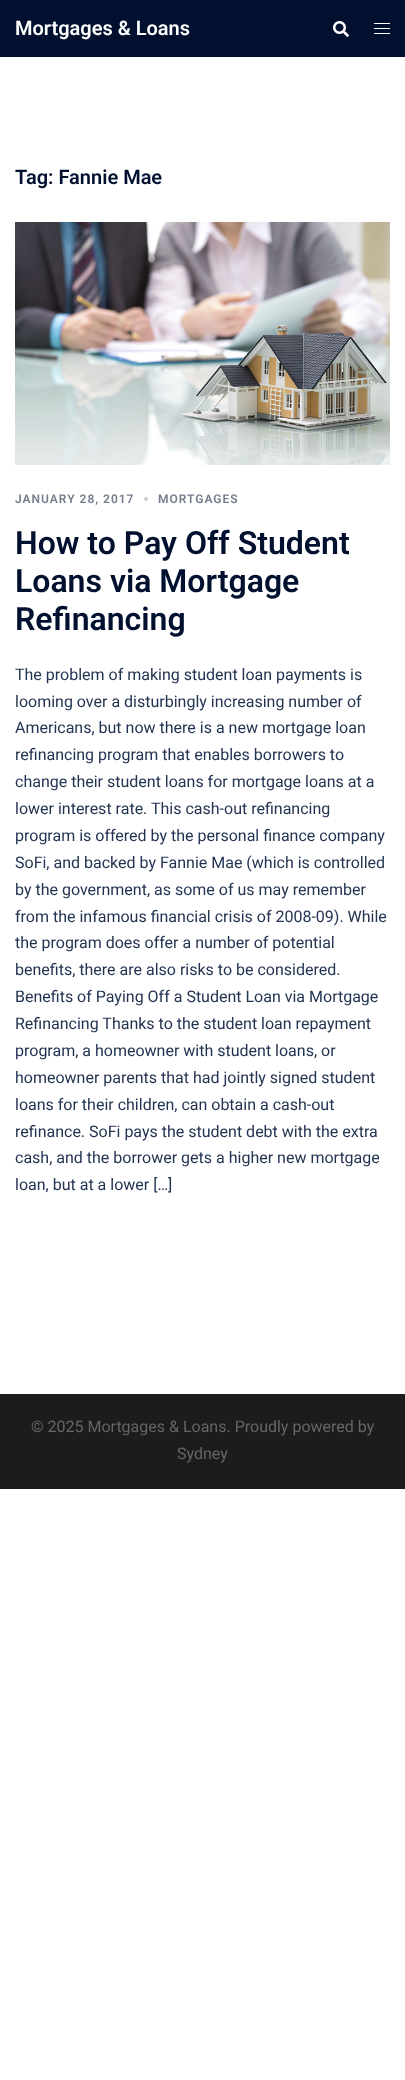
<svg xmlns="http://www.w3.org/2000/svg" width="405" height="2080">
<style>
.a{font:600 20px Roboto;fill:#fff}
.b{font:600 20px Roboto;fill:#00102e}
.c{font:600 12px Roboto;letter-spacing:1px;fill:#737c8c}
.d{font:600 32px Roboto;fill:#00102e}
.e{font:16px Roboto;fill:#233452}
.f{font:16px Roboto;fill:#666}
</style>
<rect width="100%" height="100%" fill="#fff"/>
<path fill="#00102e" d="M0 0h405v57H0z"/>
<image href="1.png" x="333" y="21" width="16" height="16"/>
<path fill="#fff" d="M374 23h16v1H374z"/>
<path fill="#fff" d="M374 28h16v1H374z"/>
<path fill="#fff" d="M374 33h16v1H374z"/>
<image href="2.png" x="15" y="222" width="375" height="243"/>
<circle fill="#cccfd5" cx="146" cy="499" r="2"/>
<path fill="#1c1c1c" d="M0 1394h405v95H0z"/>
<text class="a" x="15" y="35">Mortgages &amp; Loans</text>
<text class="b" x="15" y="184">Tag: Fannie Mae</text>
<text class="c" x="15" y="503">JANUARY 28, 2017</text>
<text class="c" x="158" y="503">MORTGAGES</text>
<text class="d" x="15" y="554">How to Pay Off Student</text>
<text class="d" x="15" y="592">Loans via Mortgage</text>
<text class="d" x="15" y="630">Refinancing</text>
<text class="e" x="15" y="680">The problem of making student loan payments is</text>
<text class="e" x="15" y="707">looming over a disturbingly increasing number of</text>
<text class="e" x="15" y="733">Americans, but now there is a new mortgage loan</text>
<text class="e" x="15" y="760">refinancing program that enables borrowers to</text>
<text class="e" x="15" y="787">change their student loans for mortgage loans at a</text>
<text class="e" x="15" y="814">lower interest rate. This cash-out refinancing</text>
<text class="e" x="15" y="841">program is offered by the personal finance company</text>
<text class="e" x="15" y="868">SoFi, and backed by Fannie Mae (which is controlled</text>
<text class="e" x="15" y="895">by the government, as some of us may remember</text>
<text class="e" x="15" y="922">from the infamous financial crisis of 2008-09). While</text>
<text class="e" x="15" y="948">the program does offer a number of potential</text>
<text class="e" x="15" y="975">benefits, there are also risks to be considered.</text>
<text class="e" x="15" y="1002">Benefits of Paying Off a Student Loan via Mortgage</text>
<text class="e" x="15" y="1029">Refinancing Thanks to the student loan repayment</text>
<text class="e" x="15" y="1056">program, a homeowner with student loans, or</text>
<text class="e" x="15" y="1083">homeowner parents that had jointly signed student</text>
<text class="e" x="15" y="1110">loans for their children, can obtain a cash-out</text>
<text class="e" x="15" y="1137">refinance. SoFi pays the student debt with the extra</text>
<text class="e" x="15" y="1163">cash, and the borrower gets a higher new mortgage</text>
<text class="e" x="15" y="1190">loan, but at a lower […]</text>
<text class="f" x="31" y="1432">© 2025 Mortgages &amp; Loans. Proudly powered by</text>
<text class="f" x="177" y="1459">Sydney</text>
</svg>
